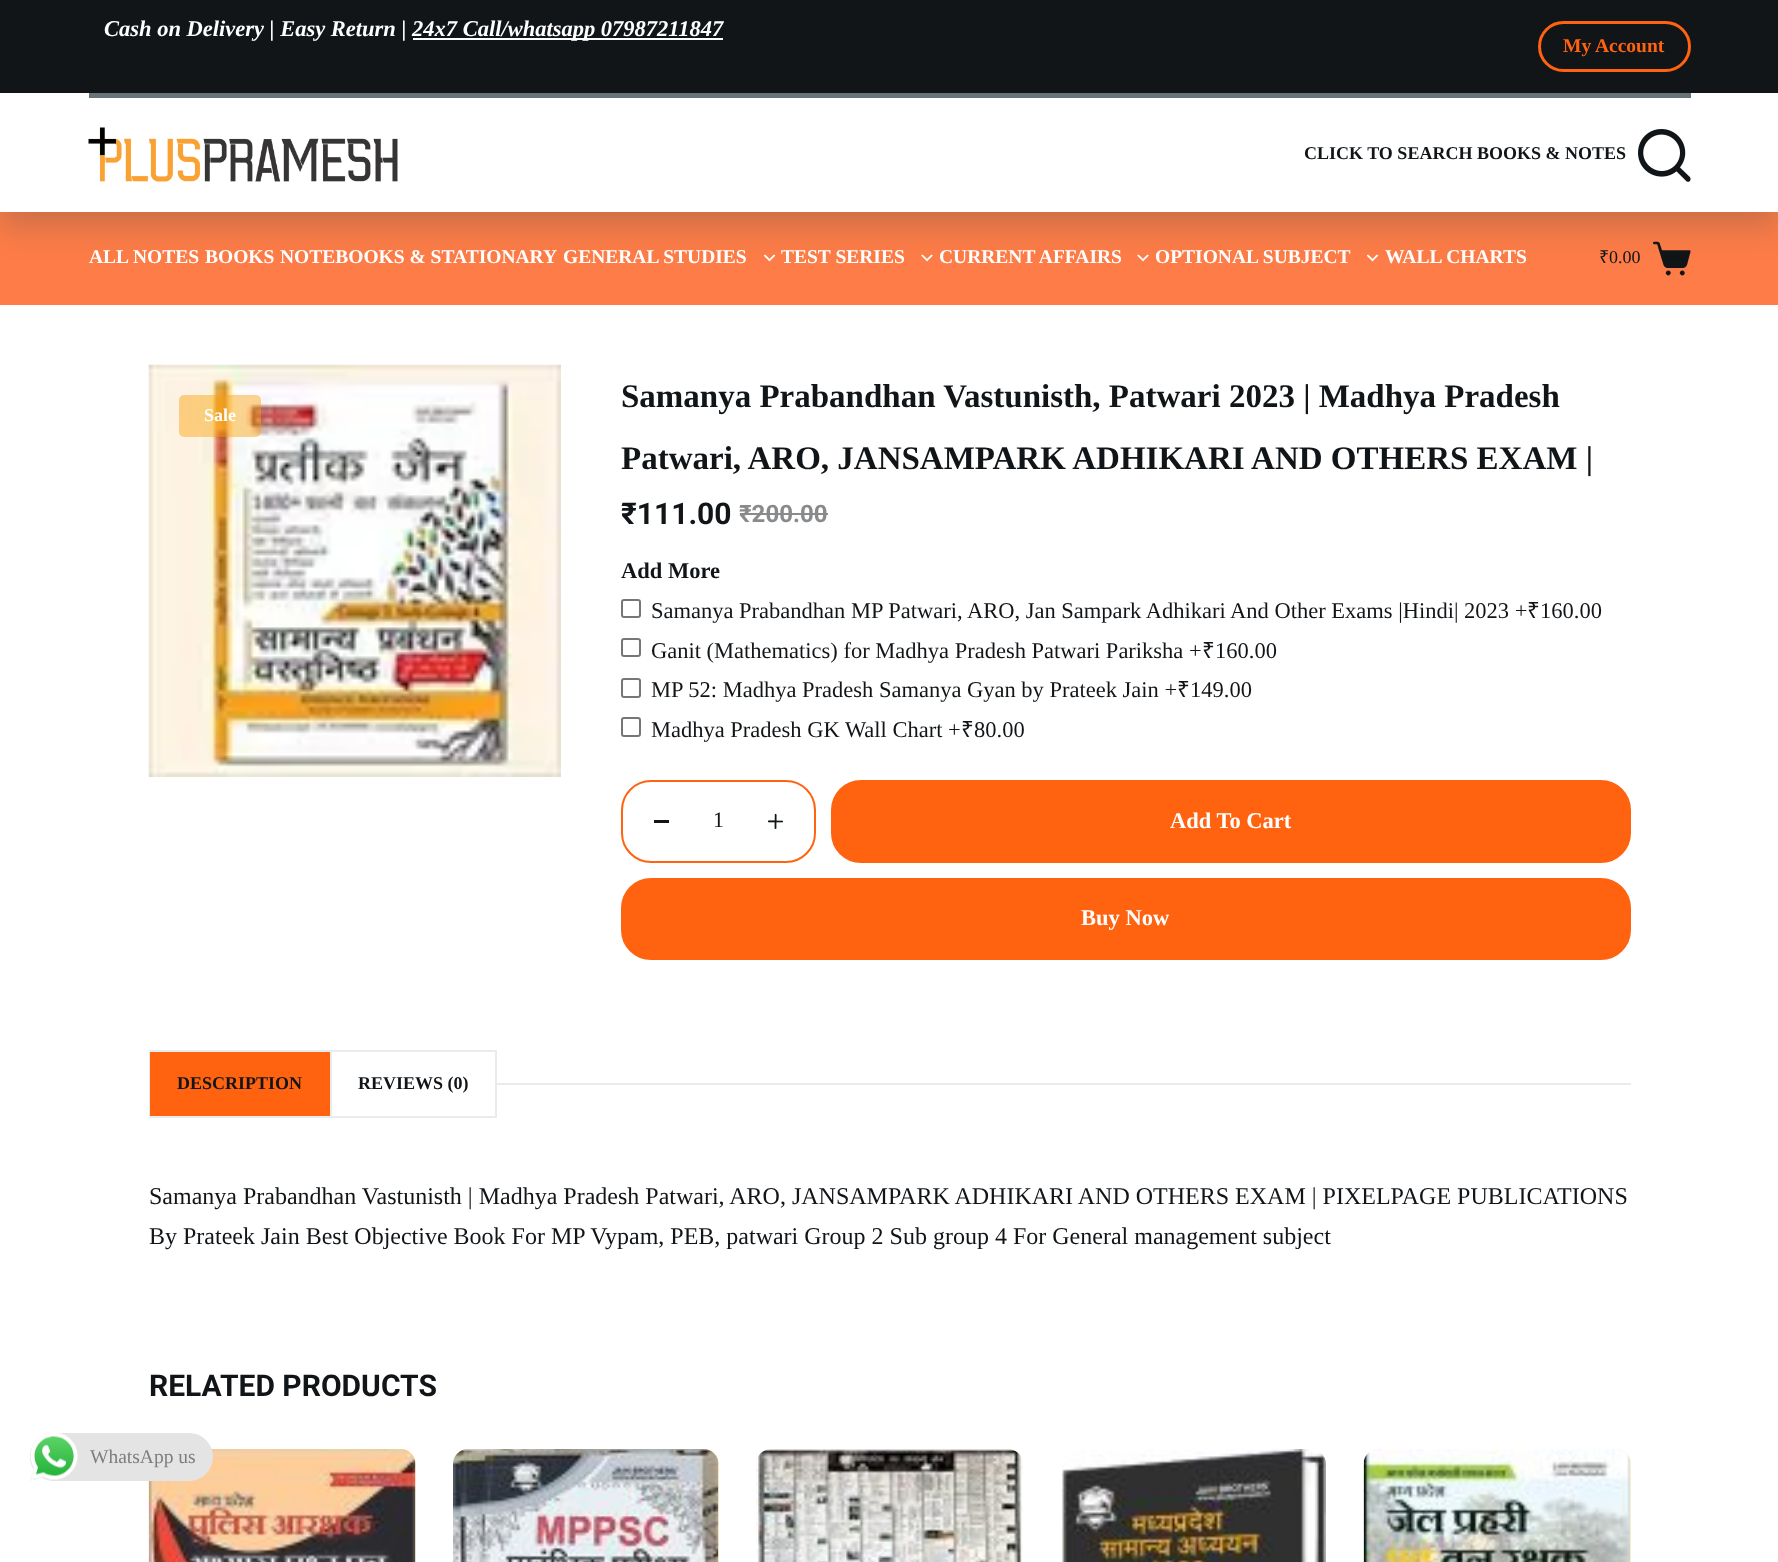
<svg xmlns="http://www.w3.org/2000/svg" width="1778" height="1562">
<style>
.a{font:italic bold 22.5px Liberation Serif;fill:#fff}
.b{font:bold 19.5px Liberation Serif;fill:#ff6310}
.c{font:bold 18px Liberation Serif;fill:#111518}
.d{font:bold 19.5px Liberation Serif;fill:#fff}
.e{font:18px Noto Sans;fill:#111518}
.f{font:18px Liberation Serif;fill:#111518}
.g{font:bold 18px Liberation Serif;fill:#fff}
.h{font:bold 33px Liberation Serif;fill:#111518}
.i{font:bold 30px Roboto;fill:#111518}
.j{font:bold 24px Roboto;fill:#888a8c}
.k{font:bold 22.5px Liberation Serif;fill:#111518}
.l{font:22.5px Liberation Serif;fill:#111518}
.m{font:22.5px Noto Sans;fill:#111518}
.n{font:22px Liberation Serif;fill:#111518}
.o{font:bold 22.5px Liberation Serif;fill:#fff}
.p{font:24px Liberation Serif;fill:#111518}
.q{font:19.5px Liberation Serif;fill:#7f7d7d}
</style>
<rect width="100%" height="100%" fill="#fff"/>
<path fill="#fd7c47" d="M0 212h1778v93H0z"/>
<image href="3.png" x="764" y="254" width="12" height="8"/>
<image href="4.png" x="921" y="254" width="12" height="8"/>
<image href="4.png" x="1137" y="254" width="12" height="8"/>
<image href="3.png" x="1367" y="254" width="12" height="8"/>
<image href="5.png" x="1653" y="241" width="38" height="35"/>
<path fill="#504e4947" filter="blur(15px)" d="M0 108h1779v119H0z"/>
<path fill="#111518" d="M0 0h1778v93H0z"/>
<path fill="#fff" d="M413 38h310v2H413z"/>
<rect fill="none" stroke="#ff6310" stroke-width="3" x="1539.5" y="22.5" width="150" height="48" rx="24"/>
<path fill="#fff" d="M0 93h1778v119H0z"/>
<path fill="#687279" d="M89 93h1602v5H89z"/>
<image href="1.png" x="88" y="127" width="310" height="55"/>
<image href="2.png" x="1638" y="129" width="53" height="53"/>
<image href="6.png" x="148" y="364" width="413" height="413"/>
<rect fill="#faa20a73" x="179" y="395" width="82" height="42" rx="5"/>
<path fill="#888a8c" d="M740 513h88v2H740z"/>
<rect fill="none" stroke="#767676" stroke-width="2" x="622" y="600" width="18" height="17" rx="2"/>
<rect fill="none" stroke="#767676" stroke-width="2" x="622" y="639" width="18" height="17" rx="2"/>
<rect fill="none" stroke="#767676" stroke-width="2" x="622" y="679" width="18" height="18" rx="2"/>
<rect fill="none" stroke="#767676" stroke-width="2" x="622" y="718" width="18" height="18" rx="2"/>
<rect fill="none" stroke="#ff6310" stroke-width="2" x="622" y="781" width="193" height="81" rx="29"/>
<path fill="#111518" d="M654 820h15v3H654z"/>
<image href="7.png" x="768" y="813" width="15" height="16"/>
<rect fill="#ff6310" stroke="#ff6310" stroke-width="2" x="832" y="781" width="798" height="81" rx="29"/>
<rect fill="#ff6310" stroke="#ff6310" stroke-width="2" x="622" y="879" width="1008" height="80" rx="29"/>
<path fill="#e9ebec" d="M495 1083h1136v2H495z"/>
<path fill="none" stroke="#e9ebec" stroke-width="2" d="M331 1051h165v66H331z"/>
<path fill="none" stroke="#e9ebec" stroke-width="2" d="M150 1051h181v66H150z"/>
<path fill="#ff6310" d="M150 1052h180v64H150z"/>
<rect fill="#fef0ca" x="149" y="1449" width="267" height="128" rx="15"/>
<image href="8.png" x="148" y="1449" width="268" height="113"/>
<rect fill="#fef0ca" x="453" y="1449" width="266" height="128" rx="15"/>
<image href="9.png" x="453" y="1449" width="266" height="113"/>
<rect fill="#fef0ca" x="756" y="1449" width="267" height="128" rx="15"/>
<image href="10.png" x="756" y="1449" width="267" height="113"/>
<image href="11.png" x="1061" y="1449" width="265" height="113"/>
<rect fill="#fef0ca" x="1364" y="1449" width="267" height="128" rx="15"/>
<image href="12.png" x="1363" y="1449" width="268" height="113"/>
<rect fill="#e4e4e4" x="30" y="1433" width="183" height="48" rx="24"/>
<image href="13.png" x="30" y="1432" width="48" height="49"/>
<text class="a" x="104" y="36">Cash on Delivery | Easy Return |</text>
<text class="a" x="412" y="36">24x7 Call/whatsapp 07987211847</text>
<text class="b" x="1563" y="52">My Account</text>
<text class="c" x="1304" y="159">CLICK TO SEARCH BOOKS &amp; NOTES</text>
<text class="d" x="89" y="263">ALL NOTES</text>
<text class="d" x="205" y="263">BOOKS</text>
<text class="d" x="280" y="263">NOTEBOOKS &amp; STATIONARY</text>
<text class="d" x="563" y="263">GENERAL STUDIES</text>
<text class="d" x="781" y="263">TEST SERIES</text>
<text class="d" x="939" y="263">CURRENT AFFAIRS</text>
<text class="d" x="1155" y="263">OPTIONAL SUBJECT</text>
<text class="d" x="1385" y="263">WALL CHARTS</text>
<text class="e" x="1599" y="263">₹</text>
<text class="f" x="1609" y="263">0.00</text>
<text class="g" x="204" y="421">Sale</text>
<text class="h" x="621" y="407">Samanya Prabandhan Vastunisth, Patwari 2023 | Madhya Pradesh</text>
<text class="h" x="621" y="469">Patwari, ARO, JANSAMPARK ADHIKARI AND OTHERS EXAM |</text>
<text class="i" x="621" y="524">₹111.00</text>
<text class="j" x="739" y="522">₹200.00</text>
<text class="k" x="621" y="578">Add More</text>
<text class="l" x="651" y="618">Samanya Prabandhan MP Patwari, ARO, Jan Sampark Adhikari And Other Exams |Hindi| 2023 +</text>
<text class="m" x="1527" y="618">₹</text>
<text class="l" x="1540" y="618">160.00</text>
<text class="l" x="651" y="658">Ganit (Mathematics) for Madhya Pradesh Patwari Pariksha +</text>
<text class="m" x="1202" y="658">₹</text>
<text class="l" x="1215" y="658">160.00</text>
<text class="l" x="651" y="697">MP 52: Madhya Pradesh Samanya Gyan by Prateek Jain +</text>
<text class="m" x="1177" y="697">₹</text>
<text class="l" x="1190" y="697">149.00</text>
<text class="l" x="651" y="737">Madhya Pradesh GK Wall Chart +</text>
<text class="m" x="961" y="737">₹</text>
<text class="l" x="974" y="737">80.00</text>
<text class="n" x="713" y="827">1</text>
<text class="o" x="1170" y="828">Add To Cart</text>
<text class="o" x="1081" y="925">Buy Now</text>
<text class="c" x="177" y="1089">DESCRIPTION</text>
<text class="c" x="358" y="1089">REVIEWS (0)</text>
<text class="p" x="149" y="1204">Samanya Prabandhan Vastunisth | Madhya Pradesh Patwari, ARO, JANSAMPARK ADHIKARI AND OTHERS EXAM | PIXELPAGE PUBLICATIONS</text>
<text class="p" x="149" y="1244">By Prateek Jain Best Objective Book For MP Vypam, PEB, patwari Group 2 Sub group 4 For General management subject</text>
<text class="i" x="149" y="1396">RELATED PRODUCTS</text>
<text class="q" x="90" y="1463">WhatsApp us</text>
</svg>
